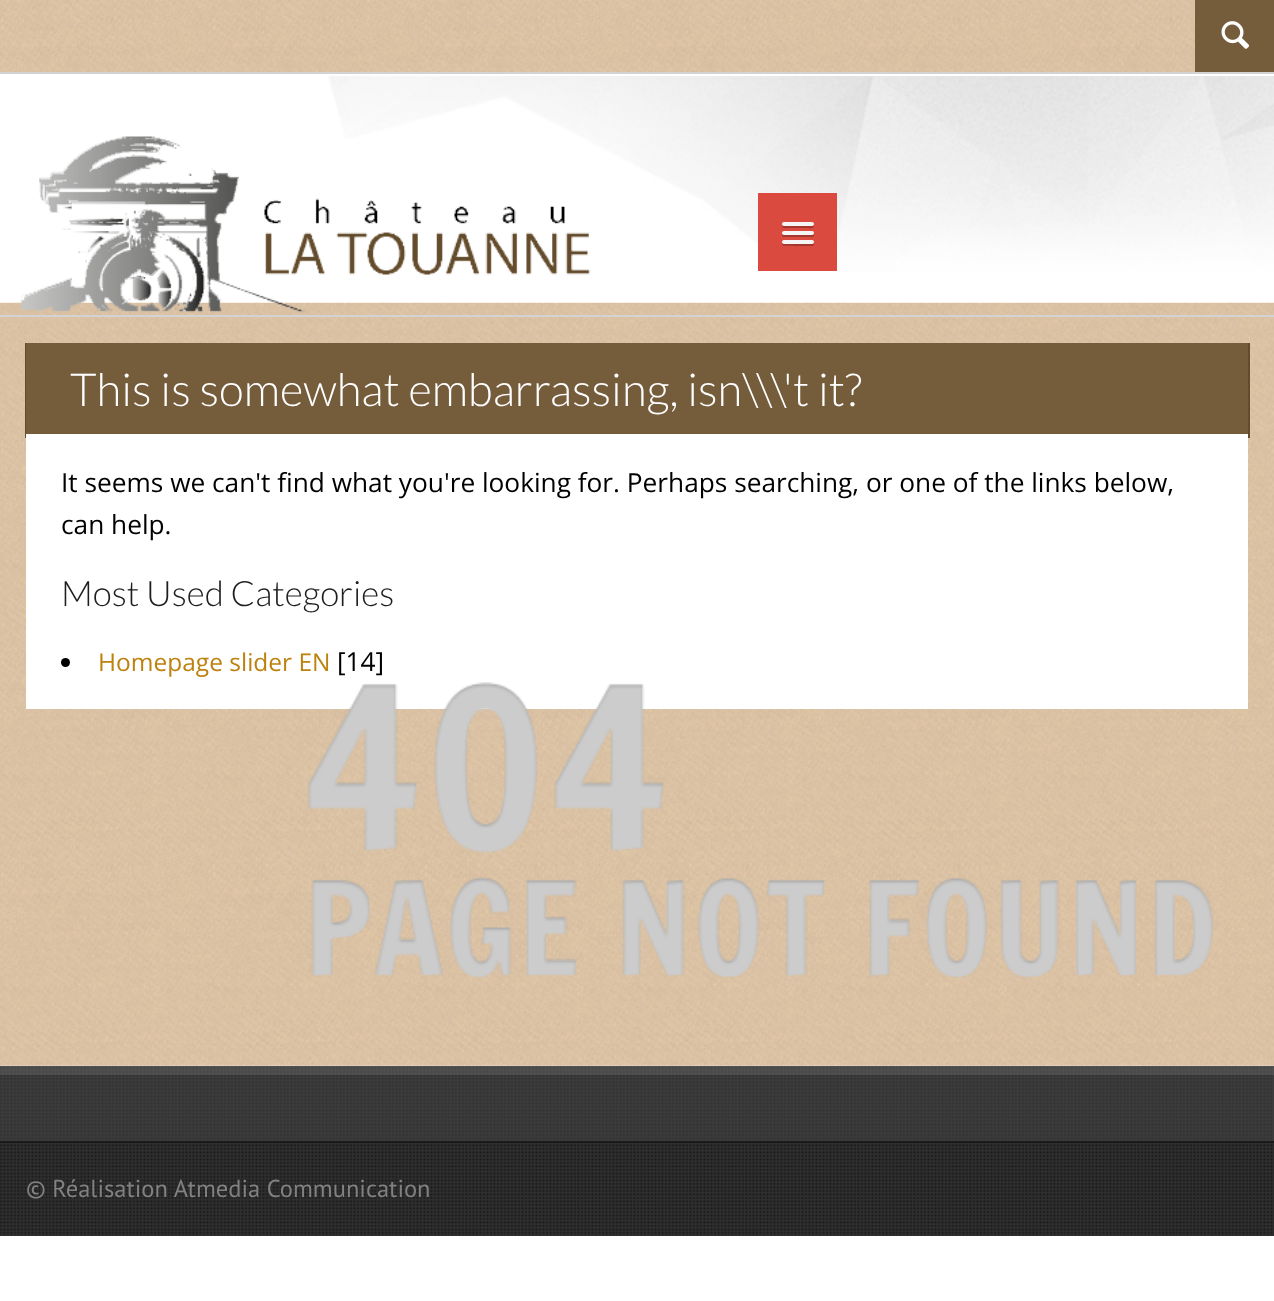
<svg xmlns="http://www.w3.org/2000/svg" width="1274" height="1301">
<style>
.a{font:300 45.5px Lato;fill:#fff}
.b{font:26.25px Open Sans;fill:#000}
.c{font:300 35px Lato;fill:#1e1e1e}
.d{font:24.5px Open Sans;fill:#bd820e}
.e{font:24.5px PT Sans;fill:#818181}
</style>
<rect width="100%" height="100%" fill="#fff"/>
<path fill="#3c3c3c" d="M0 1066h1274v75H0z"/>
<image href="6.png" x="0" y="1065" width="1272" height="76"/>
<image href="1.png" x="0" y="0" width="1274" height="1066"/>
<path fill="#d3d3d3" d="M0 72h1274v2H0z"/>
<path fill="#755c3b" d="M1195 0h79v72H1195z"/>
<image href="2.png" x="1221" y="21" width="29" height="28"/>
<image href="3.png" x="0" y="76" width="1274" height="227"/>
<path fill="#fff" d="M0 74h1274v2H0z"/>
<path fill="#d3d3d3" d="M0 315h1274v2H0z"/>
<image href="4.png" x="20" y="136" width="571" height="177"/>
<path fill="#db4a3f" d="M758 193h79v78H758z"/>
<path fill="#a4382f" d="M782.5 225l-.5 1.5c.5 2.5 5.5 1.5 6.5 1.5h19c1 0 6 1 6.5-1.5l-.5-1.5c0 .5-1 1-1.5 1h-28c-.5 0-1.5-.5-1.5-1z"/>
<rect fill="#f5f5f5" x="782" y="222" width="32" height="4" rx="2"/>
<path fill="#a4382f" d="M782.5 233.5c-1 1.5-.5 3 1 3.5h29c1.5-.5 2-2 1-3.5l-1.5 1h-28z"/>
<rect fill="#f5f5f5" x="782" y="231" width="32" height="4" rx="2"/>
<path fill="#a4382f" d="M782.5 242.5c-1 1-.5 2.5 .5 3c1 1 25.5 .5 29 .5c2 0 2.5-2 1.5-3.5l-1.5 .5h-28z"/>
<rect fill="#f5f5f5" x="782" y="240" width="32" height="4" rx="2"/>
<path fill="#634b2b" d="M25 343v95h1225v-95h-2v91h-1222v-91z"/>
<path fill="#755c3b" d="M26 343h1222v91H26z"/>
<path fill="#fff" d="M26 434h1222v275H26z"/>
<circle fill="#000" cx="65.5" cy="662.5" r="4.5"/>
<image href="5.png" x="308" y="682" width="905" height="296"/>
<path fill="#ffffff1a" d="M0 1066h1274v9H0z"/>
<path fill="#303030" d="M0 1143h1274v93H0z"/>
<image href="7.png" x="0" y="1143" width="1274" height="93"/>
<path fill="#1a1a1a" d="M0 1141h1274v2H0z"/>
<text class="a" x="70" y="406">This is somewhat embarrassing, isn\\\'t it?</text>
<text class="b" x="61" y="492">It seems we can't find what you're looking for. Perhaps searching, or one of the links below,</text>
<text class="b" x="61" y="534">can help.</text>
<text class="c" x="61" y="606">Most Used Categories</text>
<text class="d" x="98" y="671">Homepage slider EN</text>
<text class="b" x="337" y="671">[14]</text>
<text class="e" x="26" y="1197">© Réalisation Atmedia Communication</text>
</svg>
